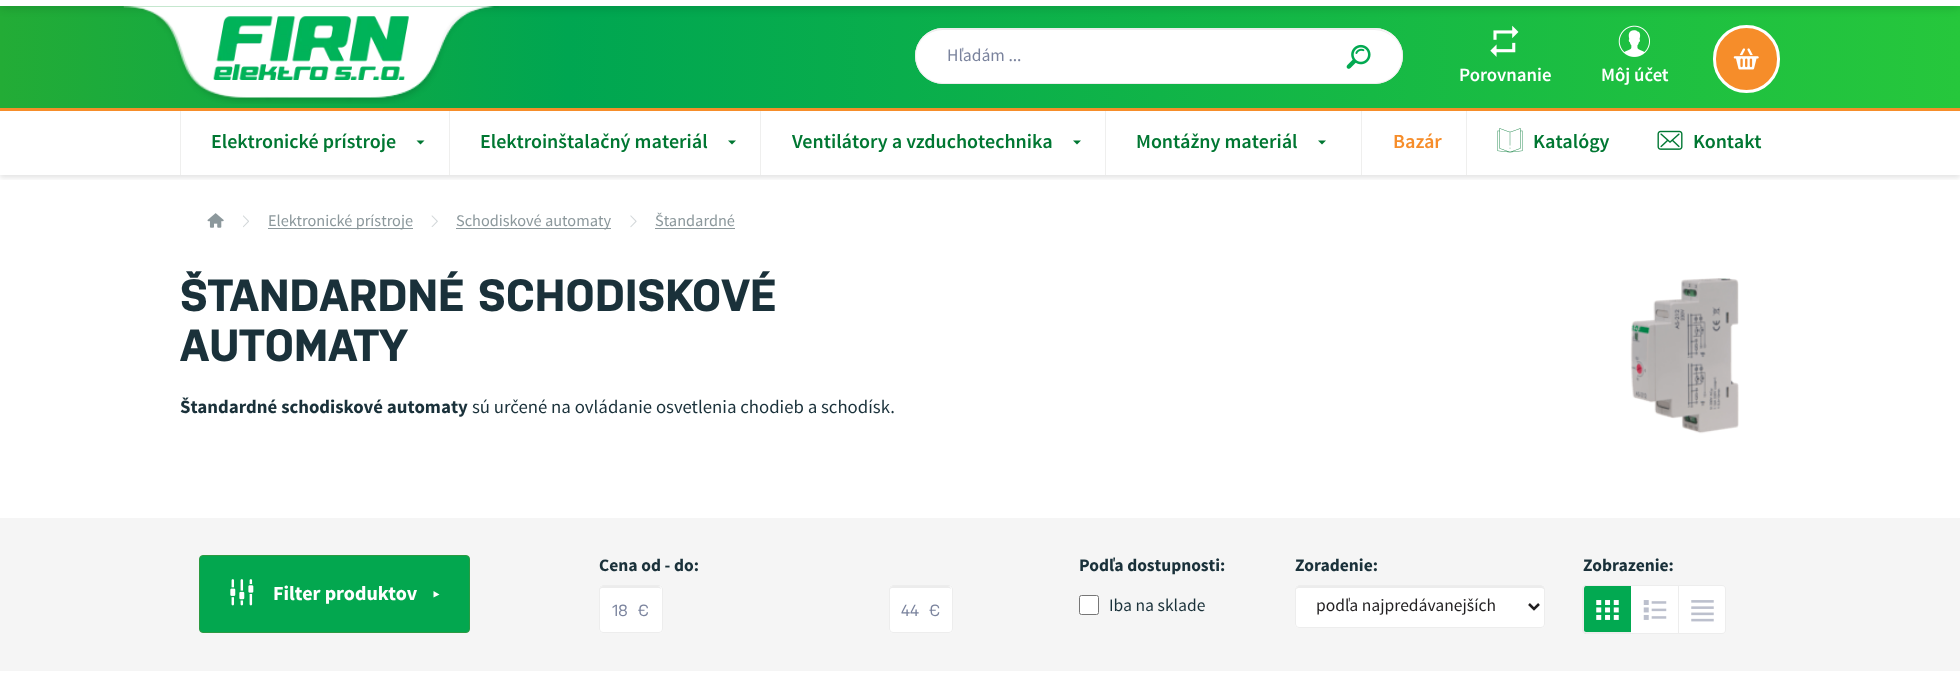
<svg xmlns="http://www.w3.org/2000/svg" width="1960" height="689">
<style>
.a{font:17.5px Source Sans Pro;fill:#7a839d}
.b{font:600 18.75px Source Sans Pro;fill:#fff}
.c{font:600 20px Source Sans Pro;fill:#007732}
.d{font:600 20px Source Sans Pro;fill:#f68d2a}
.e{font:16.25px Source Sans Pro;fill:#8c989c}
.f{font:bold 45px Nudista;fill:#1a313a}
.g{font:bold 18.75px Source Sans Pro;fill:#1a313a}
.h{font:18.75px Source Sans Pro;fill:#1a313a}
.i{font:bold 20px Source Sans Pro;fill:#fff}
.j{font:bold 17.5px Source Sans Pro;fill:#1a313a}
.k{font:16.25px Nudista;fill:#7a839d}
.l{font:17.5px Source Sans Pro;fill:#1a313a}
.m{font:17.5px Source Sans Pro;fill:#211f20}
</style>
<defs>
<clipPath id="clip1"><path d="M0 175h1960v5H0z"/></clipPath>
<linearGradient id="g1" gradientUnits="userSpaceOnUse" x1="0" y1="54" x2="1960" y2="54"><stop offset="0" stop-color="#23ac36"/><stop offset="0.29" stop-color="#00a651"/><stop offset="1" stop-color="#26c73c"/></linearGradient>
</defs>
<rect width="100%" height="100%" fill="#fff"/>
<g clip-path="url(#clip1)">
<path fill="#0000001a" filter="blur(2.5px)" d="M0 113h1960v65H0z"/>
</g>
<path fill="url(#g1)" d="M0 6h1960v102H0z"/>
<path fill="#efefee" d="M449 110h1v65H449z"/>
<path fill="#efefee" d="M180 110h1v65H180z"/>
<path fill="#efefee" d="M760 110h1v65H760z"/>
<path fill="#efefee" d="M1105 110h1v65H1105z"/>
<path fill="#efefee" d="M1466 110h1v65H1466z"/>
<path fill="#efefee" d="M1361 110h1v65H1361z"/>
<path fill="#f68d2a" d="M0 108h1960v3H0z"/>
<path fill="#00000026" filter="blur(4.5px)" d="M0 1h1960v7H0z"/>
<path fill="#fff" d="M0 0h1960v6H0z"/>
<image href="1.png" x="123" y="6" width="376" height="98"/>
<image href="2.png" x="213" y="16" width="196" height="64"/>
<rect fill="#fff" x="915" y="28" width="488" height="56" rx="28"/>
<path fill="#ececec" d="M943 30h431c15 0 27 12 27 26c0-14-12-27-27-27h-431c-15 0-27 13-27 27c0-14 12-26 27-26z"/>
<rect fill="none" stroke="#ededed" x="915.5" y="28.5" width="487" height="55" rx="27.5"/>
<image href="3.png" x="1346" y="44" width="25" height="25"/>
<rect fill="#f68d2a" stroke="#fff" stroke-width="3" x="1714.5" y="26.5" width="64" height="65" rx="32"/>
<image href="4.png" x="1733" y="48" width="26" height="22"/>
<image href="5.png" x="1490" y="25" width="29" height="32"/>
<image href="6.png" x="1618" y="25" width="32" height="32"/>
<path fill="#007732" d="M416.5 140.5h8l-4 4z"/>
<path fill="#007732" d="M728 140.5h8l-4 4z"/>
<path fill="#007732" d="M1073 140.5h8l-4 4z"/>
<path fill="#007732" d="M1318 140.5h8l-4 4z"/>
<image href="7.png" x="1497" y="128" width="26" height="25"/>
<image href="8.png" x="1657" y="130" width="26" height="20"/>
<image href="9.png" x="207" y="213" width="17" height="15"/>
<image href="10.png" x="243" y="215" width="6" height="13"/>
<path fill="#8c989c" d="M268 228h145v1H268z"/>
<image href="11.png" x="431" y="215" width="7" height="12"/>
<path fill="#8c989c" d="M456 228h155v1H456z"/>
<image href="12.png" x="630" y="215" width="7" height="13"/>
<path fill="#8c989c" d="M655 228h80v1H655z"/>
<image href="13.png" x="1630" y="278" width="109" height="156"/>
<path fill="#f5f5f5" d="M0 518h1960v153H0z"/>
<rect fill="#03a74f" stroke="#2c9a42" x="199.5" y="555.5" width="270" height="77" rx="3.5"/>
<image href="14.png" x="230" y="579" width="24" height="27"/>
<path fill="#fff" d="M433.5 591v6.5l6-3z"/>
<rect fill="#fff" x="599" y="585" width="64" height="48" rx="4"/>
<path fill="#ececec" d="M602 588h57c1 0 2 1 2 2c0-6-6-4-12-4h-37c-6 0-12-2-12 4c0-1 1-2 2-2z"/>
<rect fill="none" stroke="#ededed" x="599.5" y="585.5" width="63" height="47" rx="3.5"/>
<rect fill="#fff" x="889" y="585" width="64" height="48" rx="4"/>
<path fill="#ececec" d="M892 588h57c1 0 2 1 2 2c0-6-6-4-12-4h-37c-6 0-12-2-12 4c0-1 1-2 2-2z"/>
<rect fill="none" stroke="#ededed" x="889.5" y="585.5" width="63" height="47" rx="3.5"/>
<rect fill="#fff" stroke="#767676" x="1079.5" y="595.5" width="19" height="19" rx="2"/>
<rect fill="#fff" x="1295" y="585" width="250" height="43" rx="4"/>
<path fill="#ececec" d="M1299 588h242c2 0 3 1 3 2c0-2 0-4-2-4h-244c-2 1-2 3-2 4c0-1 1-2 3-2z"/>
<rect fill="none" stroke="#ededed" x="1295.5" y="585.5" width="249" height="42" rx="3.5"/>
<path fill="none" stroke="#211f20" stroke-width="2.5" d="M1529 604l5 5l5-5"/>
<path fill="#ededed" d="M1630 585h49v1H1630z"/>
<path fill="#ededed" d="M1630 633h49v1H1630z"/>
<path fill="#02a951" d="M1587 585h44v49h-44c-2 0-4-2-4-4v-41c0-2 2-4 4-4z"/>
<path fill="#ededed" fill-rule="evenodd" d="M1586 585h45v49h-45c-2 0-4-2-4-4v-41c0-2 2-4 4-4zm0 1h45v46h-45c-1 0-2-1-2-2v-41c0-2 1-3 2-3z"/>
<image href="15.png" x="1596" y="600" width="23" height="20"/>
<path fill="#fff" d="M1631 586h47v47H1631z"/>
<image href="16.png" x="1643" y="600" width="24" height="20"/>
<path fill="#fff" stroke="#ededed" d="M1678.5 585.5h43.5c2 0 3.5 1.5 3.5 3.5v41c0 2-1.5 3.5-3.5 3.5h-43.5z"/>
<image href="17.png" x="1691" y="600" width="23" height="22"/>
<text class="a" x="947" y="61">Hľadám ...</text>
<text class="b" x="1459" y="81">Porovnanie</text>
<text class="b" x="1601" y="81">Môj účet</text>
<text class="c" x="211" y="148">Elektronické prístroje</text>
<text class="c" x="480" y="148">Elektroinštalačný materiál</text>
<text class="c" x="792" y="148">Ventilátory a vzduchotechnika</text>
<text class="c" x="1136" y="148">Montážny materiál</text>
<text class="d" x="1393" y="148">Bazár</text>
<text class="c" x="1533" y="148">Katalógy</text>
<text class="c" x="1693" y="148">Kontakt</text>
<text class="e" x="268" y="226">Elektronické prístroje</text>
<text class="e" x="456" y="226">Schodiskové automaty</text>
<text class="e" x="655" y="226">Štandardné</text>
<text class="f" x="180" y="311">ŠTANDARDNÉ SCHODISKOVÉ</text>
<text class="f" x="180" y="361">AUTOMATY</text>
<text class="g" x="180" y="413">Štandardné schodiskové automaty</text>
<text class="h" x="472" y="413">sú určené na ovládanie osvetlenia chodieb a schodísk.</text>
<text class="i" x="273" y="600">Filter produktov</text>
<text class="j" x="599" y="571">Cena od - do:</text>
<text class="k" xml:space="preserve" x="612" y="616">18  €</text>
<text class="k" xml:space="preserve" x="901" y="616">44  €</text>
<text class="j" x="1079" y="571">Podľa dostupnosti:</text>
<text class="l" x="1109" y="611">Iba na sklade</text>
<text class="j" x="1295" y="571">Zoradenie:</text>
<text class="m" x="1316" y="611">podľa najpredávanejších</text>
<text class="j" x="1583" y="571">Zobrazenie:</text>
</svg>
